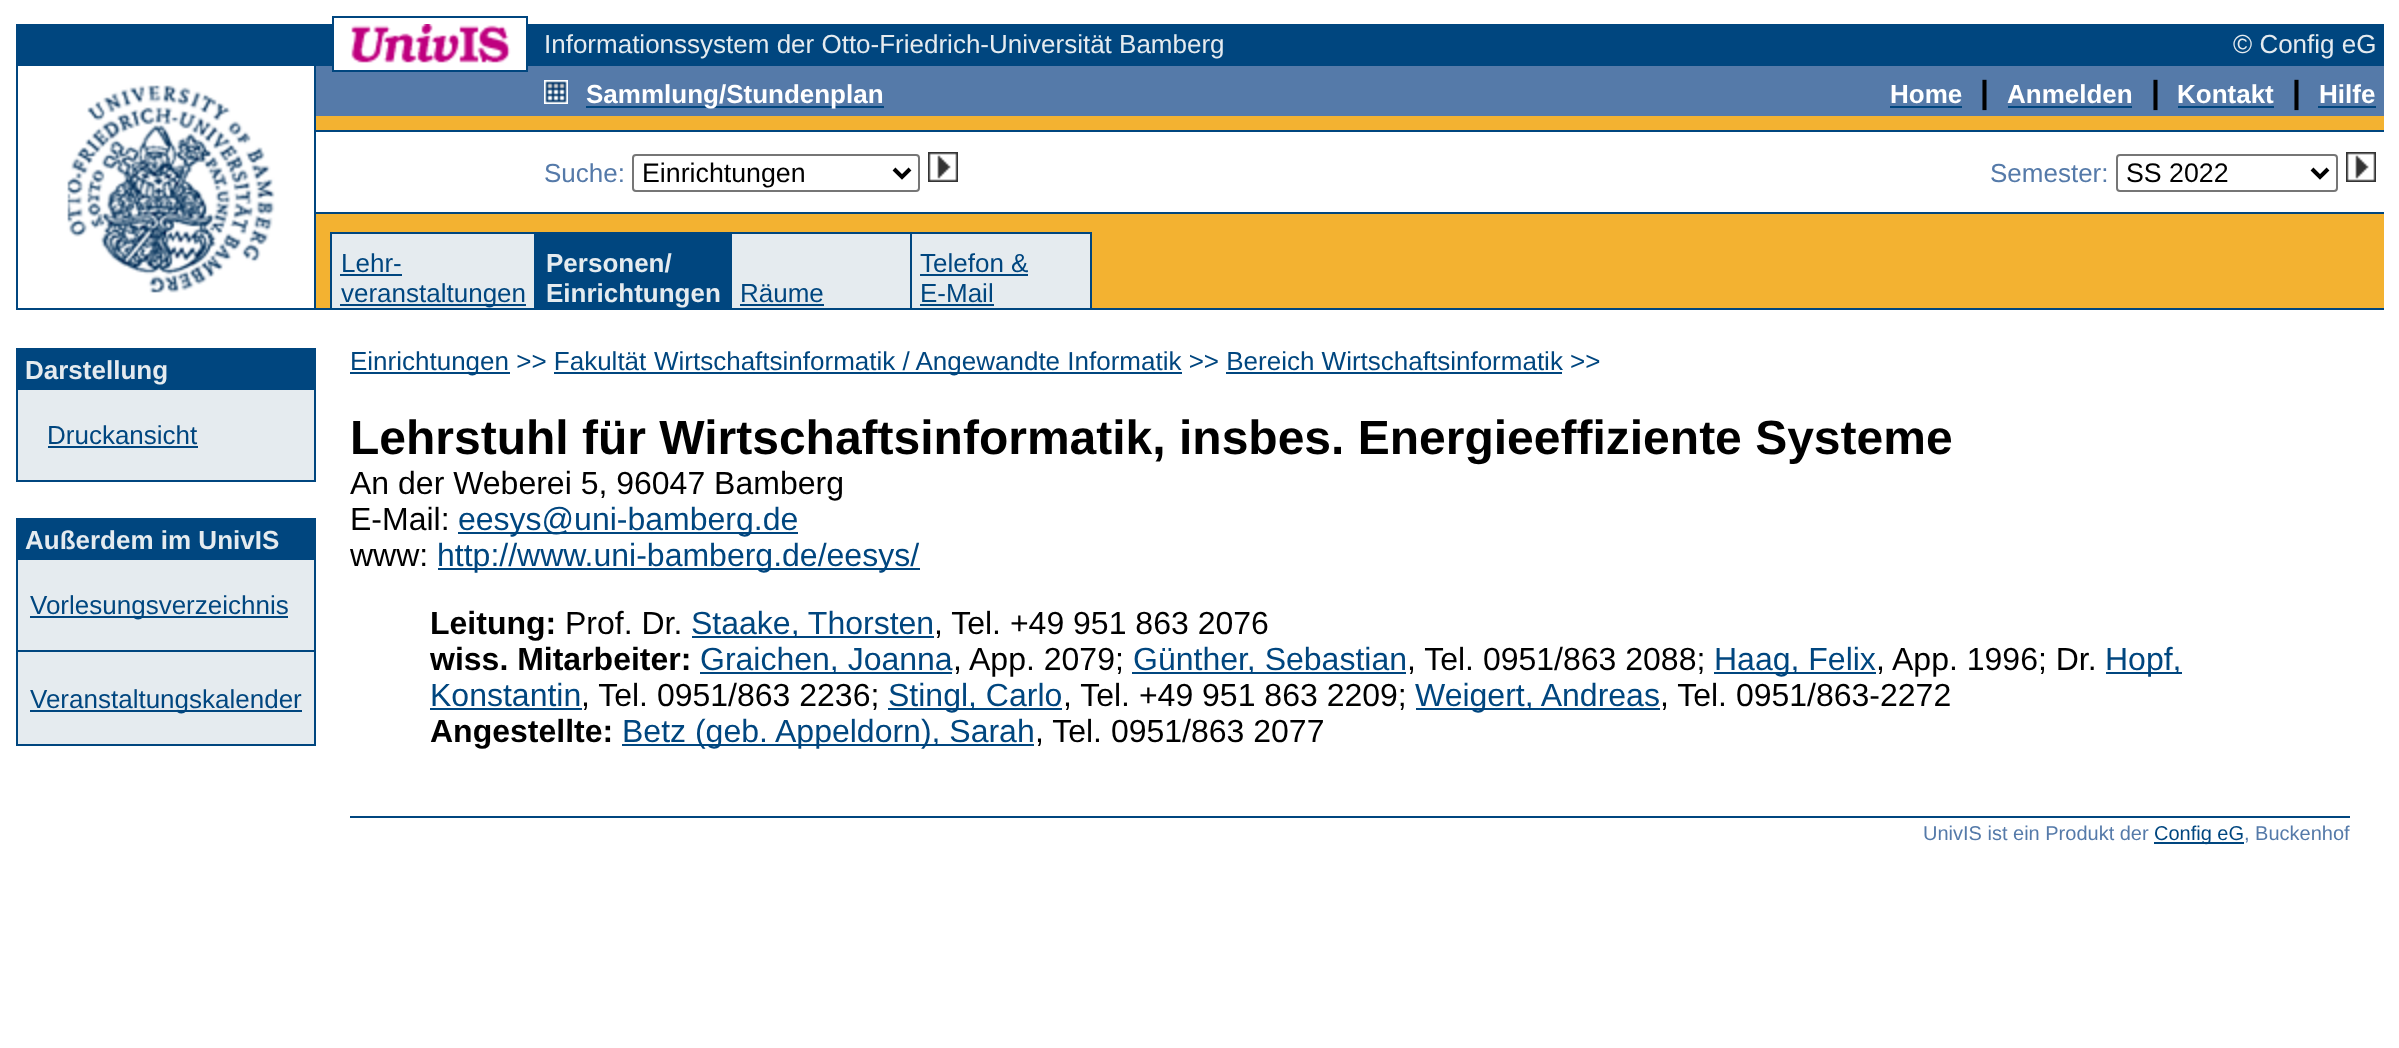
<svg xmlns="http://www.w3.org/2000/svg" width="2399" height="1048">
<style>
.a{font:26px Liberation Sans;fill:#e5ebef}
.b{font:bold 26px Liberation Sans;fill:#fff}
.c{font:bold 32px Liberation Sans;fill:#000}
.d{font:26px Liberation Sans;fill:#557aa9}
.e{font:26.75px Liberation Sans;fill:#000}
.f{font:26px Liberation Sans;fill:#00467f}
.g{font:bold 26px Liberation Sans;fill:#e5ebef}
.h{font:bold 48px Liberation Sans;fill:#000}
.i{font:32px Liberation Sans;fill:#000}
.j{font:32px Liberation Sans;fill:#00467f}
.k{font:20px Liberation Sans;fill:#557aa9}
.l{font:20px Liberation Sans;fill:#00467f}
</style>
<rect width="100%" height="100%" fill="#fff"/>
<path fill="#00467f" d="M332 16h196v2H332z"/>
<path fill="#00467f" d="M332 18h2v6H332z"/>
<path fill="#00467f" d="M526 18h2v46H526z"/>
<path fill="#00467f" d="M16 24h318v40H16z"/>
<image href="1.png" x="351" y="24" width="160" height="39"/>
<path fill="#00467f" d="M528 24h1856v40H528z"/>
<path fill="#00467f" d="M16 64h2368v2H16z"/>
<path fill="#fff" d="M334 64h192v2H334z"/>
<path fill="#00467f" d="M16 66h2v244H16z"/>
<image href="2.png" x="67" y="85" width="208" height="208"/>
<path fill="#00467f" d="M314 66h2v242H314z"/>
<path fill="#f3b231" d="M316 116h2068v192H316z"/>
<path fill="#557aa9" d="M316 66h2068v4H316z"/>
<path fill="#00467f" d="M332 66h2v4H332z"/>
<path fill="#fff" d="M334 66h192v4H334z"/>
<path fill="#00467f" d="M526 66h2v4H526z"/>
<path fill="#557aa9" d="M316 70h2068v4H316z"/>
<path fill="#00467f" d="M332 70h196v2H332z"/>
<path fill="#557aa9" d="M316 74h2068v42H316z"/>
<image href="3.png" x="544" y="80" width="24" height="24"/>
<path fill="#00467f" d="M586 106h298v2H586z"/>
<path fill="#00467f" d="M1890 106h72v2H1890z"/>
<path fill="#00467f" d="M2008 106h124v2H2008z"/>
<path fill="#00467f" d="M2178 106h96v2H2178z"/>
<path fill="#00467f" d="M2318 106h58v2H2318z"/>
<path fill="#00467f" d="M316 130h2068v2H316z"/>
<path fill="#fff" d="M316 132h2068v80H316z"/>
<rect fill="none" stroke="#767676" stroke-width="2" x="633" y="155" width="286" height="36" rx="3"/>
<path fill="none" stroke="#000" stroke-width="4" d="M894 169l8 8l8-8"/>
<image href="4.png" x="928" y="152" width="30" height="30"/>
<rect fill="none" stroke="#767676" stroke-width="2" x="2117" y="155" width="220" height="36" rx="3"/>
<path fill="none" stroke="#000" stroke-width="4" d="M2312 169l8 8l8-8"/>
<image href="4.png" x="2346" y="152" width="30" height="30"/>
<path fill="#00467f" d="M316 212h2068v2H316z"/>
<path fill="#00467f" d="M330 232h762v2H330z"/>
<path fill="#00467f" d="M330 234h2v74H330z"/>
<path fill="#e5ebef" d="M332 234h202v74H332z"/>
<path fill="#00467f" d="M534 234h198v74H534z"/>
<path fill="#e5ebef" d="M732 234h178v74H732z"/>
<path fill="#00467f" d="M910 234h2v74H910z"/>
<path fill="#e5ebef" d="M912 234h178v74H912z"/>
<path fill="#00467f" d="M1090 234h2v74H1090z"/>
<path fill="#00467f" d="M340 274h62v2H340z"/>
<path fill="#00467f" d="M340 304h186v2H340z"/>
<path fill="#00467f" d="M740 304h84v2H740z"/>
<path fill="#00467f" d="M920 274h108v2H920z"/>
<path fill="#00467f" d="M920 304h74v2H920z"/>
<path fill="#00467f" d="M18 308h2366v2H18z"/>
<path fill="#00467f" d="M16 348h2v134H16z"/>
<path fill="#00467f" d="M18 348h296v42H18z"/>
<path fill="#00467f" d="M314 348h2v134H314z"/>
<path fill="#e5ebef" d="M18 390h296v90H18z"/>
<path fill="#00467f" d="M48 446h150v2H48z"/>
<path fill="#00467f" d="M18 480h296v2H18z"/>
<path fill="#00467f" d="M16 518h2v228H16z"/>
<path fill="#00467f" d="M18 518h296v42H18z"/>
<path fill="#00467f" d="M314 518h2v228H314z"/>
<path fill="#e5ebef" d="M18 560h296v90H18z"/>
<path fill="#00467f" d="M30 616h258v2H30z"/>
<path fill="#00467f" d="M18 650h296v2H18z"/>
<path fill="#e5ebef" d="M18 652h296v2H18z"/>
<path fill="#e5ebef" d="M18 654h296v90H18z"/>
<path fill="#00467f" d="M30 710h272v2H30z"/>
<path fill="#00467f" d="M18 744h296v2H18z"/>
<path fill="#00467f" d="M350 372h160v2H350z"/>
<path fill="#00467f" d="M554 372h628v2H554z"/>
<path fill="#00467f" d="M1226 372h336v2H1226z"/>
<path fill="#00467f" d="M458 532h340v2H458z"/>
<path fill="#00467f" d="M438 568h482v2H438z"/>
<path fill="#00467f" d="M692 636h242v2H692z"/>
<path fill="#00467f" d="M700 672h252v2H700z"/>
<path fill="#00467f" d="M1132 672h274v2H1132z"/>
<path fill="#00467f" d="M1714 672h162v2H1714z"/>
<path fill="#00467f" d="M2106 672h76v2H2106z"/>
<path fill="#00467f" d="M430 708h152v2H430z"/>
<path fill="#00467f" d="M888 708h174v2H888z"/>
<path fill="#00467f" d="M1416 708h244v2H1416z"/>
<path fill="#00467f" d="M622 744h412v2H622z"/>
<path fill="#00467f" d="M350 816h2000v2H350z"/>
<path fill="#00467f" d="M2154 842h90v2H2154z"/>
<text class="a" x="544" y="53">Informationssystem der Otto-Friedrich-Universität Bamberg</text>
<text class="a" x="2233" y="53">© Config eG</text>
<text class="b" x="586" y="103">Sammlung/Stundenplan</text>
<text class="b" x="1890" y="103">Home</text>
<text class="c" x="1980" y="103">|</text>
<text class="b" x="2007" y="103">Anmelden</text>
<text class="c" x="2151" y="103">|</text>
<text class="b" x="2177" y="103">Kontakt</text>
<text class="c" x="2292" y="103">|</text>
<text class="b" x="2319" y="103">Hilfe</text>
<text class="d" x="544" y="182">Suche:</text>
<text class="e" x="642" y="182">Einrichtungen</text>
<text class="d" x="1990" y="182">Semester:</text>
<text class="e" x="2126" y="182">SS 2022</text>
<text class="f" x="341" y="272">Lehr-</text>
<text class="f" x="341" y="302">veranstaltungen</text>
<text class="g" x="546" y="272">Personen/</text>
<text class="g" x="546" y="302">Einrichtungen</text>
<text class="f" x="740" y="302">Räume</text>
<text class="f" x="920" y="272">Telefon &amp;</text>
<text class="f" x="920" y="302">E-Mail</text>
<text class="g" x="25" y="379">Darstellung</text>
<text class="f" x="47" y="444">Druckansicht</text>
<text class="g" x="25" y="549">Außerdem im UnivIS</text>
<text class="f" x="30" y="614">Vorlesungsverzeichnis</text>
<text class="f" x="30" y="708">Veranstaltungskalender</text>
<text class="f" x="350" y="370">Einrichtungen &gt;&gt; Fakultät</text>
<text class="f" x="654" y="370">Wirtschaftsinformatik / Angewandte Informatik &gt;&gt; Bereich Wirtschaftsinformatik &gt;&gt;</text>
<text class="h" x="350" y="454">Lehrstuhl für Wirtschaftsinformatik, insbes. Energieeffiziente Systeme</text>
<text class="i" x="350" y="494">An der Weberei 5, 96047 Bamberg</text>
<text class="i" x="350" y="530">E-Mail:</text>
<text class="j" x="458" y="530">eesys@uni-bamberg.de</text>
<text class="i" x="350" y="566">www:</text>
<text class="j" x="437" y="566">http://www.uni-bamberg.de/eesys/</text>
<text class="c" x="430" y="634">Leitung:</text>
<text class="i" x="565" y="634">Prof. Dr.</text>
<text class="j" x="691" y="634">Staake, Thorsten</text>
<text class="i" x="934" y="634">, Tel. +49 951 863 2076</text>
<text class="c" x="430" y="670">wiss. Mitarbeiter:</text>
<text class="j" x="700" y="670">Graichen, Joanna</text>
<text class="i" x="953" y="670">, App. 2079;</text>
<text class="j" x="1133" y="670">Günther, Sebastian</text>
<text class="i" x="1407" y="670">, Tel. 0951/863 2088;</text>
<text class="j" x="1714" y="670">Haag, Felix</text>
<text class="i" x="1876" y="670">, App. 1996; Dr.</text>
<text class="j" x="2105" y="670">Hopf,</text>
<text class="j" x="430" y="706">Konstantin</text>
<text class="i" x="581" y="706">, Tel. 0951/863 2236;</text>
<text class="j" x="888" y="706">Stingl, Carlo</text>
<text class="i" x="1063" y="706">, Tel. +49 951 863 2209;</text>
<text class="j" x="1415" y="706">Weigert, Andreas</text>
<text class="i" x="1660" y="706">, Tel. 0951/863-2272</text>
<text class="c" x="430" y="742">Angestellte:</text>
<text class="j" x="622" y="742">Betz (geb. Appeldorn), Sarah</text>
<text class="i" x="1035" y="742">, Tel. 0951/863 2077</text>
<text class="k" x="1923" y="840">UnivIS ist ein Produkt der</text>
<text class="l" x="2154" y="840">Config eG</text>
<text class="k" x="2244" y="840">, Buckenhof</text>
</svg>
